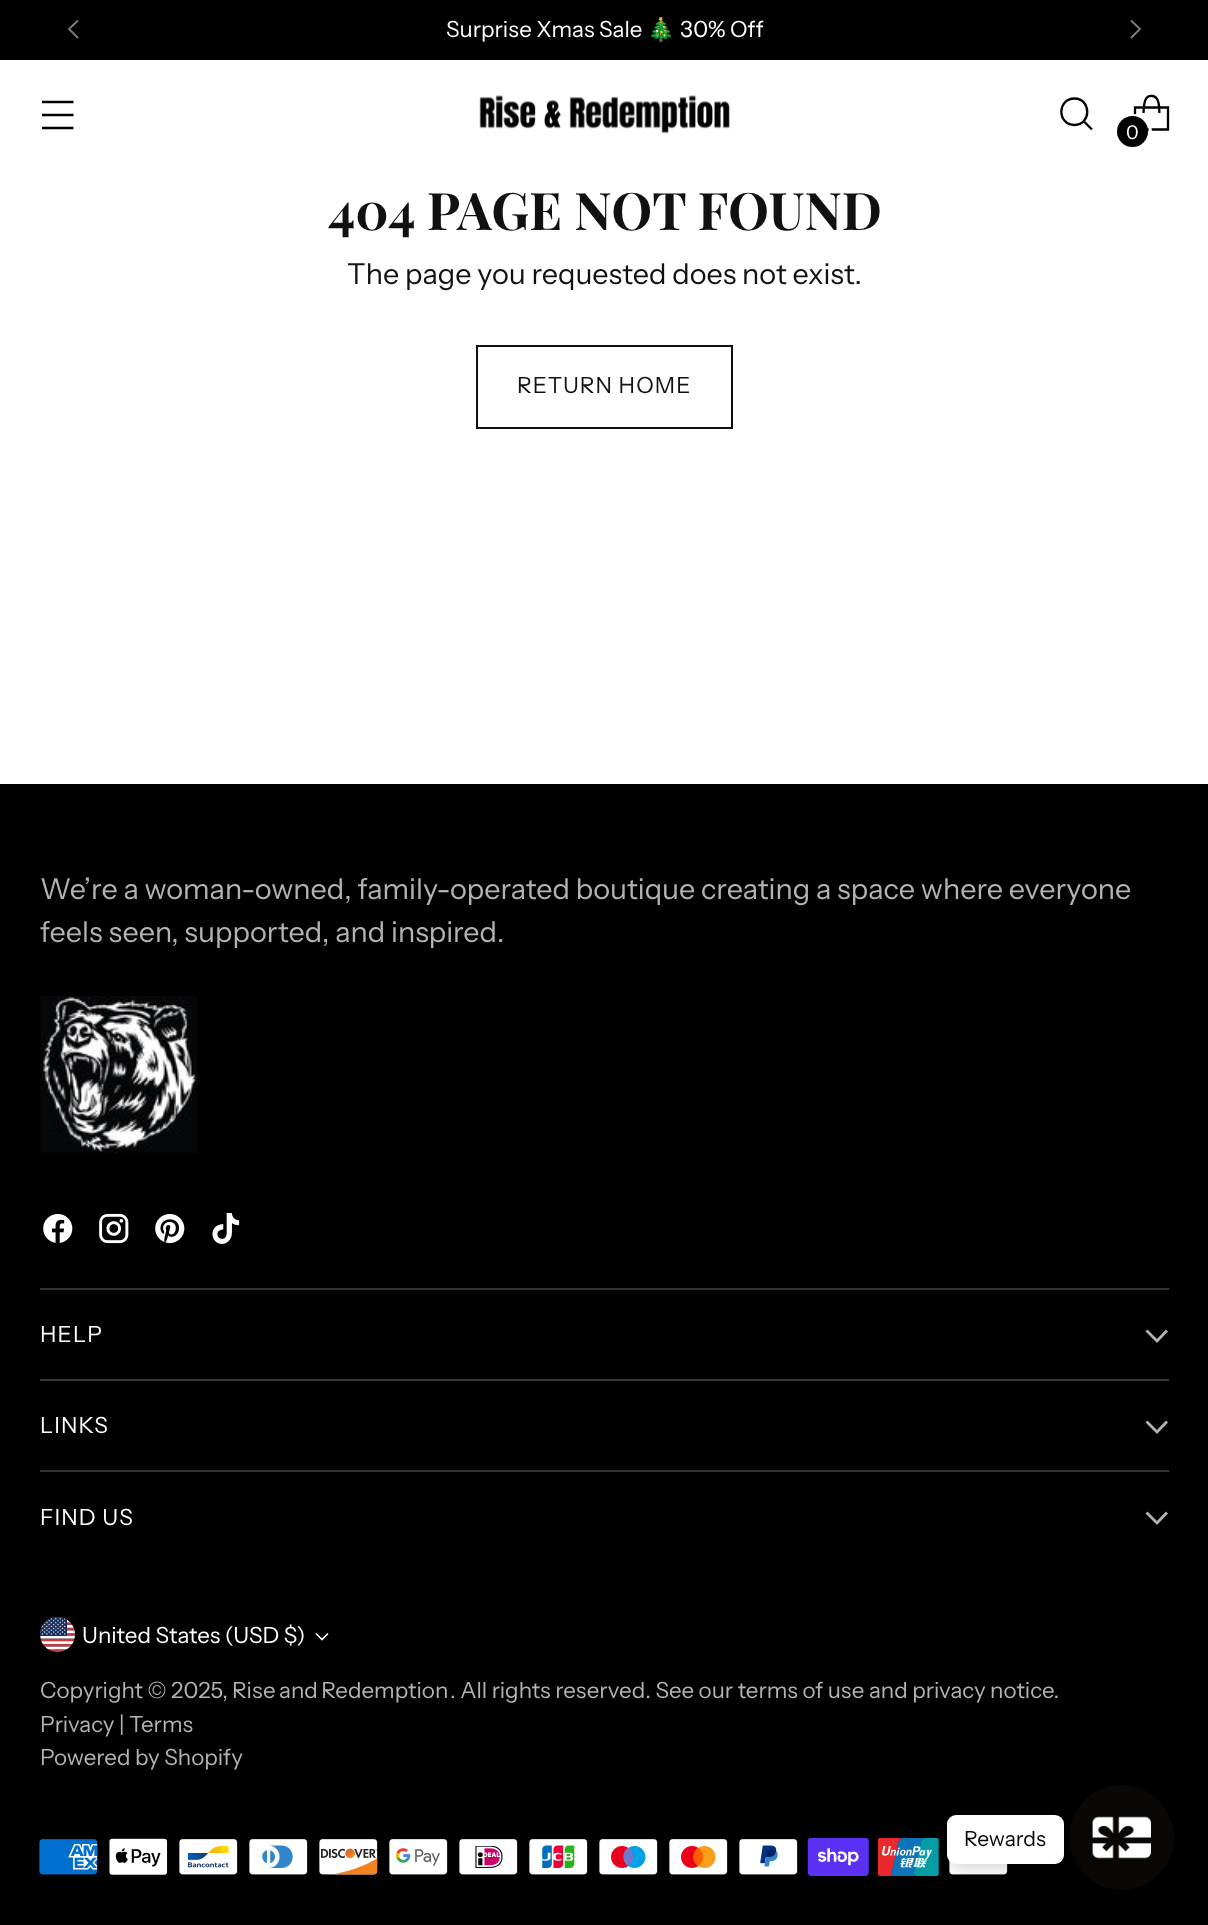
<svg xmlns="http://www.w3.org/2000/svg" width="1208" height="1925">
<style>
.a{font:22.35px Instrument Sans;fill:#fff}
.b{font:22.35px Noto Color Emoji;fill:#fff}
.c{font:19px Instrument Sans;fill:#fff}
.d{font:bold 51.75px Playfair Display;fill:#111}
.e{font:28.8px Instrument Sans;fill:#111}
.f{font:22.35px Instrument Sans;letter-spacing:1.1px;fill:#111}
.g{font:28.8px Instrument Sans;fill:#b3b3b3}
.h{font:22.35px Instrument Sans;letter-spacing:1.1px;fill:#fff}
.i{font:22.35px Instrument Sans;fill:#b3b3b3}
.j{font:21px Instrument Sans;fill:#0a0806}
</style>
<rect width="100%" height="100%" fill="#fff"/>
<path fill="#000" d="M0 0h1208v60H0z"/>
<path fill="none" stroke="#808080" stroke-width="1.8" d="M78 20.5l-9 8.5l9 9"/>
<path fill="none" stroke="#808080" stroke-width="1.8" d="M1131 38l9-9l-9-8.5"/>
<path fill="none" stroke="#000" stroke-width="2.3" d="M42 115h31.5m-31.5-13h31.5m-31.5 26h31.5"/>
<image href="1.png" x="479" y="95" width="251" height="39"/>
<path fill="none" stroke="#000" stroke-width="2.3" stroke-linecap="round" d="M1074.5 125c17 0 17-26.5 0-26.5c-17.5 0-17.5 26.5 0 26.5z"/>
<path fill="none" stroke="#000" stroke-width="2.3" d="M1084 121.5l8 8"/>
<path fill="none" stroke="#000" stroke-width="2.3" stroke-linejoin="bevel" d="M1159.5 113c-.5-4 0-8.5-1.5-12c-1-2.5-2.5-4.5-5-5c-9.5-2-9 10.5-9.5 17"/>
<path fill="none" stroke="#000" stroke-width="2.3" d="M1168 129.5v-22h-33v22z"/>
<circle fill="none" stroke="#fff" stroke-width="3" cx="1133.5" cy="132.5" r="17"/>
<circle fill="#000" cx="1132.5" cy="131.5" r="15.5"/>
<path fill="none" stroke="#111" stroke-width="2" d="M477 346h255v82H477z"/>
<path fill="#000" d="M0 784h1208v1141H0z"/>
<path fill="#333" d="M40 1288h1129v2H40z"/>
<image href="2.png" x="40" y="996" width="158" height="157"/>
<image href="3.png" x="43" y="1213" width="30" height="30"/>
<image href="4.png" x="99" y="1213" width="30" height="31"/>
<image href="5.png" x="155" y="1213" width="30" height="31"/>
<image href="6.png" x="212" y="1213" width="28" height="31"/>
<path fill="#333" d="M40 1379h1129v2H40z"/>
<path fill="none" stroke="#b3b3b3" stroke-width="2.8" d="M1146.5 1330.5l10.5 10.5l10-10.5"/>
<path fill="#333" d="M40 1470h1129v2H40z"/>
<path fill="none" stroke="#b3b3b3" stroke-width="2.8" d="M1146.5 1421.5l10.5 10.5l10-10.5"/>
<path fill="none" stroke="#b3b3b3" stroke-width="2.8" d="M1146.5 1512.5l10.5 10.5l10-10.5"/>
<image href="7.png" x="40" y="1617" width="35" height="35"/>
<path fill="none" stroke="#fff" stroke-width="1.6" d="M316 1633.5l6 6l6-6"/>
<image href="8.png" x="39" y="1839" width="59" height="36"/>
<image href="9.png" x="109" y="1838" width="59" height="37"/>
<image href="10.png" x="179" y="1839" width="59" height="36"/>
<image href="11.png" x="249" y="1839" width="59" height="36"/>
<image href="12.png" x="319" y="1839" width="59" height="36"/>
<image href="13.png" x="389" y="1839" width="59" height="36"/>
<image href="14.png" x="459" y="1839" width="59" height="36"/>
<image href="15.png" x="529" y="1839" width="59" height="36"/>
<image href="16.png" x="599" y="1839" width="59" height="36"/>
<image href="17.png" x="669" y="1839" width="59" height="36"/>
<image href="18.png" x="739" y="1839" width="59" height="36"/>
<image href="19.png" x="807" y="1838" width="62" height="38"/>
<image href="20.png" x="877" y="1838" width="62" height="38"/>
<image href="21.png" x="949" y="1860" width="59" height="15"/>
<circle fill="#0a0806" cx="1121.5" cy="1837.5" r="52.5"/>
<image href="22.png" x="1092" y="1816" width="59" height="43"/>
<rect fill="#00000033" filter="blur(9px)" x="950" y="1818" width="118" height="49" rx="9"/>
<rect fill="#fff" x="947" y="1815" width="117" height="49" rx="9"/>
<text class="a" x="446" y="37">Surprise Xmas Sale</text>
<text class="b" x="647" y="37">🎄</text>
<text class="a" x="680" y="37">30% Off</text>
<text class="c" x="1126" y="139">0</text>
<text class="d" x="328" y="230">404 PAGE NOT FOUND</text>
<text class="e" x="347" y="284">The page you requested does not exist.</text>
<text class="f" x="517" y="393">RETURN HOME</text>
<text class="g" x="40" y="899">We’re a woman-owned, family-operated boutique creating a space where everyone</text>
<text class="g" x="40" y="942">feels seen, supported, and inspired.</text>
<text class="h" x="40" y="1342">HELP</text>
<text class="h" x="40" y="1433">LINKS</text>
<text class="h" x="40" y="1525">FIND US</text>
<text class="a" x="82" y="1643">United States (USD $)</text>
<text class="i" x="40" y="1698">Copyright © 2025,</text>
<text class="i" x="232" y="1698" word-spacing="-1">Rise and Redemption</text>
<text class="i" x="450" y="1698">. All rights reserved. See our terms of use and privacy notice.</text>
<text class="i" x="40" y="1732">Privacy | Terms</text>
<text class="i" x="40" y="1765">Powered by Shopify</text>
<text class="j" x="964" y="1846">Rewards</text>
</svg>
